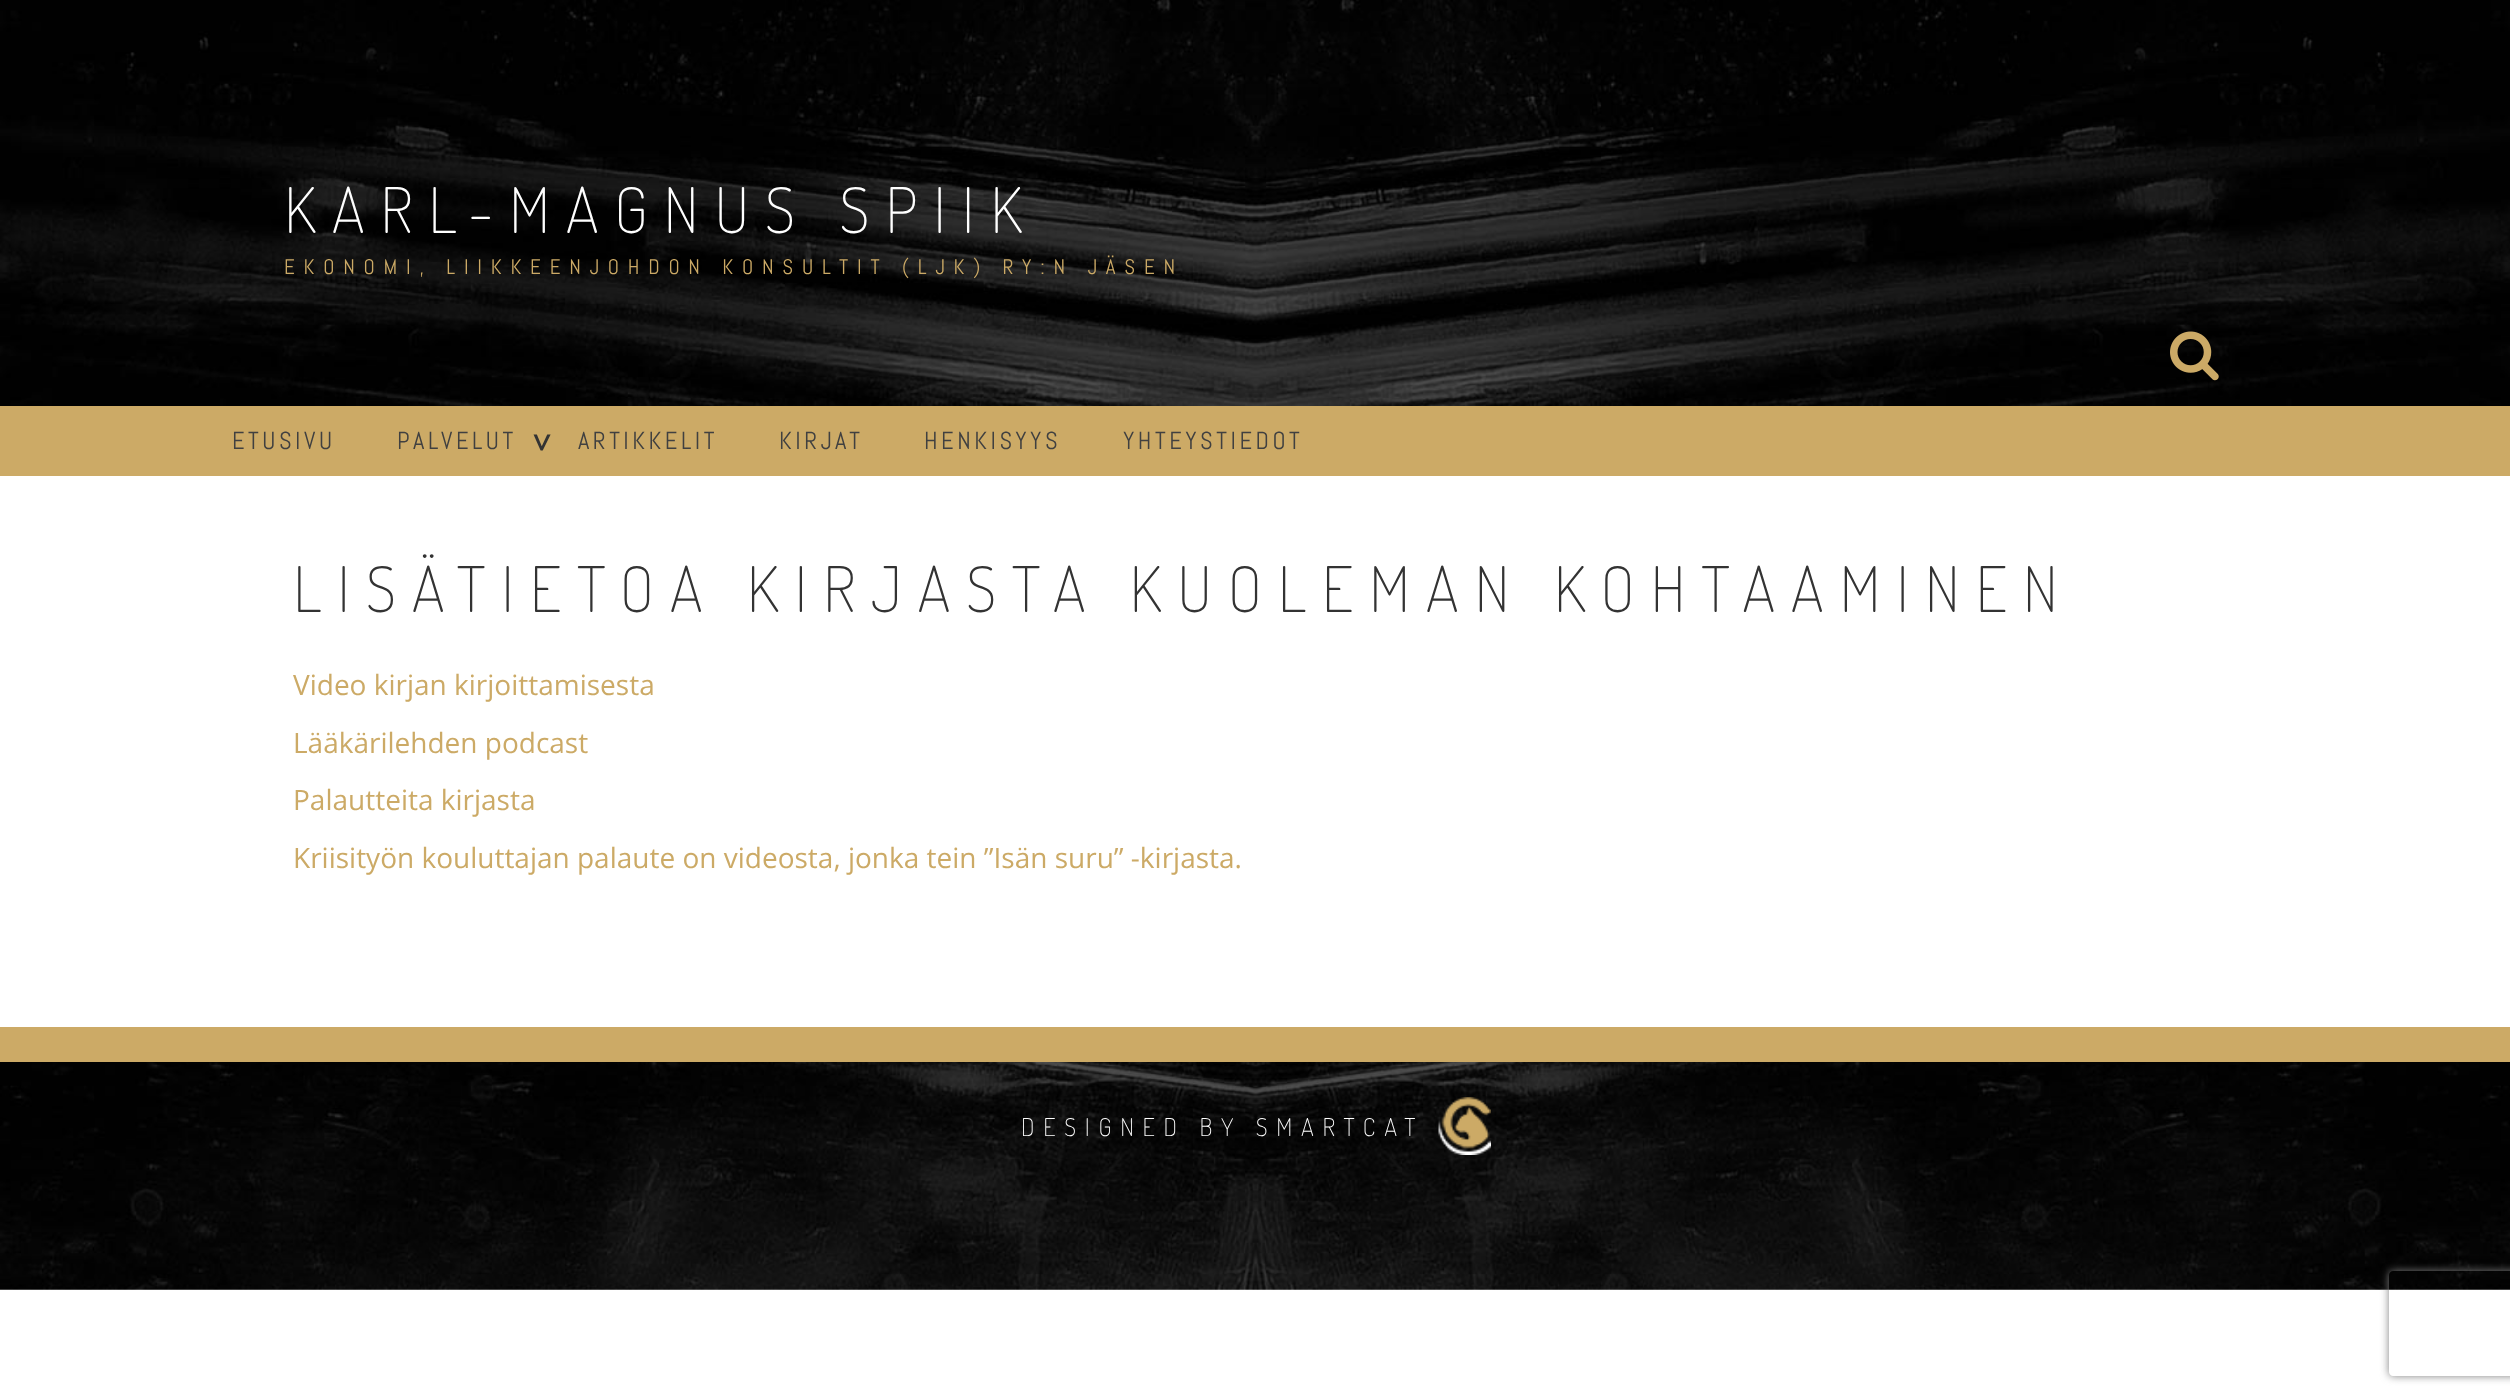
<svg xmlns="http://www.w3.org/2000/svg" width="2510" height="1400">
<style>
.a{font:200 63px Dosis;letter-spacing:15.75px;fill:#fff}
.b{font:21px Abel;letter-spacing:8.75px;fill:#ca6}
.c{font:24.5px Abel;letter-spacing:3.5px;fill:#404040}
.d{font:bold 32px Open Sans;fill:#333}
.e{font:200 63px Dosis;letter-spacing:15.75px;fill:#333}
.f{font:28px Open Sans;fill:#ca6}
.g{font:200 24.5px Dosis;letter-spacing:8.75px;fill:#fff}
</style>
<defs>
<clipPath id="clip1"><path d="M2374 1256h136v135h-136zm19 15h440c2 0 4 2 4 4v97c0 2-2 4-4 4h-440c-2 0-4-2-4-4v-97c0-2 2-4 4-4z" clip-rule="evenodd"/></clipPath>
</defs>
<rect width="100%" height="100%" fill="#fff"/>
<image href="1.png" x="0" y="0" width="2510" height="406"/>
<image href="2.png" x="2170" y="331" width="49" height="50"/>
<path fill="#ca6" d="M0 406h2510v70H0z"/>
<image href="3.png" x="0" y="1062" width="2510" height="228"/>
<path fill="#ca6" d="M0 1027h2510v35H0z"/>
<image href="4.png" x="1438" y="1097" width="53" height="58"/>
<g clip-path="url(#clip1)">
<rect fill="#808080" filter="blur(4.5px)" x="2389" y="1271" width="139" height="105" rx="4"/>
</g>
<text class="a" x="284" y="233">KARL-MAGNUS SPIIK</text>
<text class="b" x="284" y="274">EKONOMI, LIIKKEENJOHDON KONSULTIT (LJK) RY:N JÄSEN</text>
<text class="c" x="232" y="449">ETUSIVU</text>
<text class="c" x="397" y="449">PALVELUT</text>
<text class="d" x="530" y="433" transform="rotate(90 530 433)">&gt;</text>
<text class="c" x="578" y="449">ARTIKKELIT</text>
<text class="c" x="779" y="449">KIRJAT</text>
<text class="c" x="924" y="449">HENKISYYS</text>
<text class="c" x="1123" y="449">YHTEYSTIEDOT</text>
<text class="e" x="293" y="612">LISÄTIETOA KIRJASTA KUOLEMAN KOHTAAMINEN</text>
<text class="f" x="293" y="695">Video kirjan kirjoittamisesta</text>
<text class="f" x="293" y="753">Lääkärilehden podcast</text>
<text class="f" x="293" y="810">Palautteita kirjasta</text>
<text class="f" x="293" y="868">Kriisityön kouluttajan palaute on videosta, jonka tein ”Isän suru” -kirjasta.</text>
<text class="g" x="1021" y="1136">DESIGNED BY SMARTCAT</text>
</svg>
